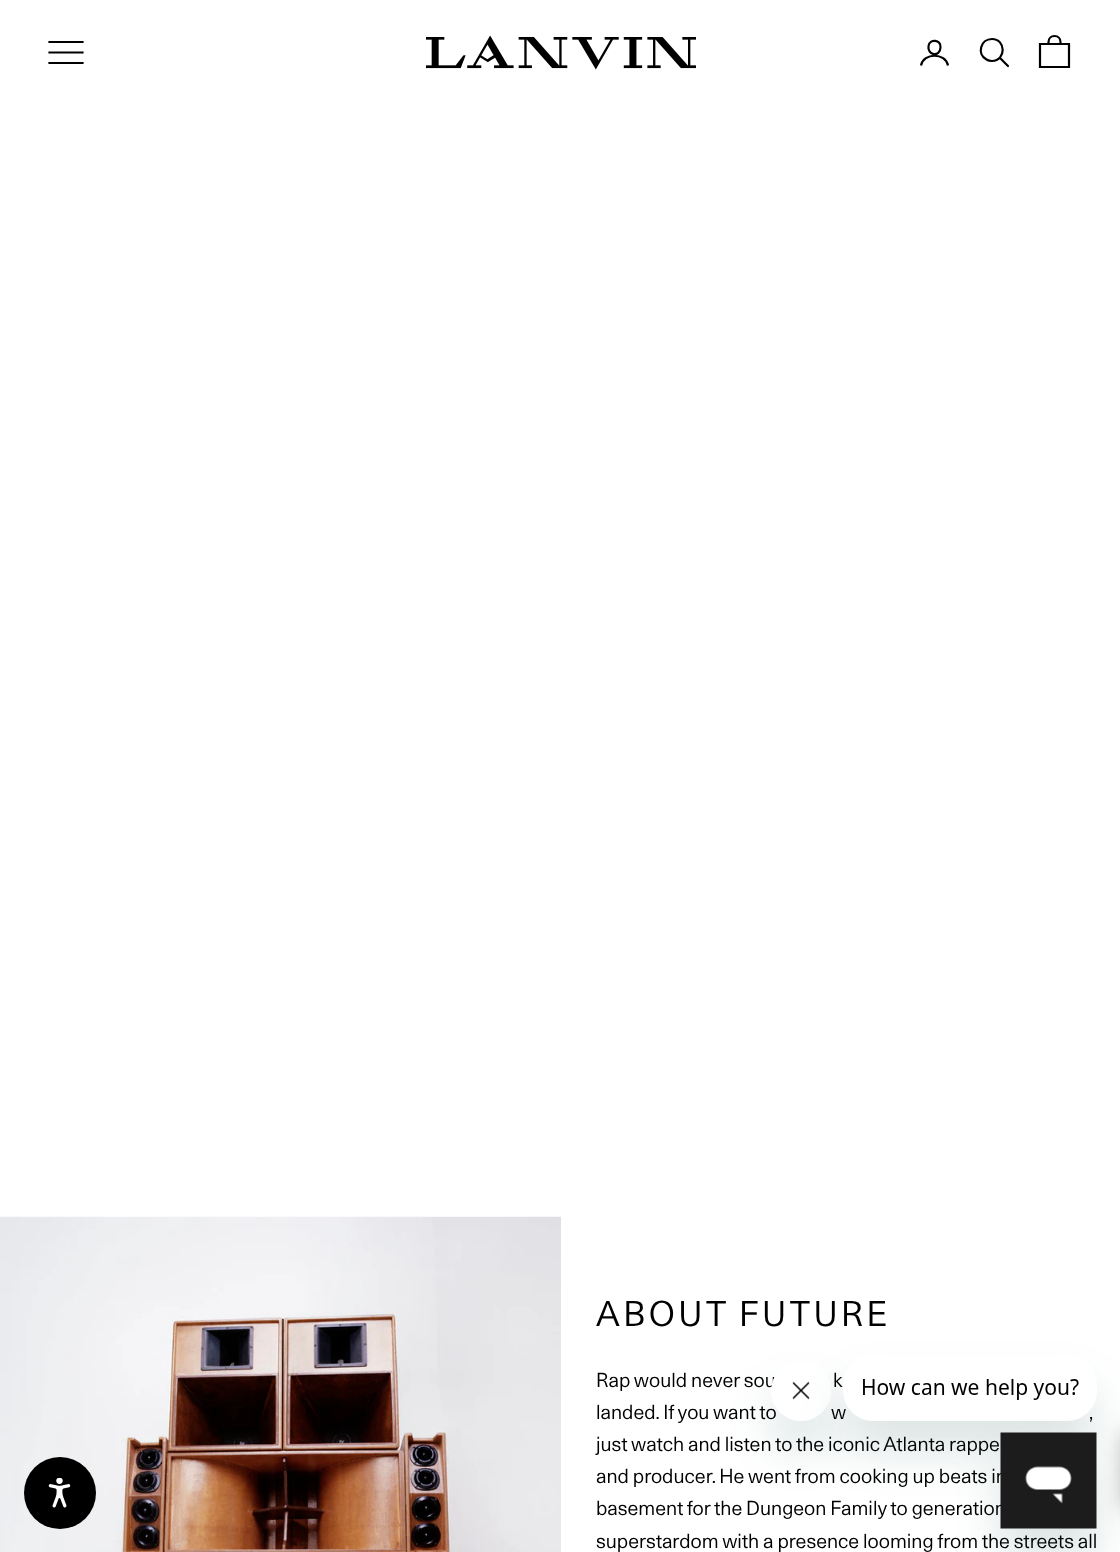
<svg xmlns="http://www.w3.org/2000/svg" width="1120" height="1552">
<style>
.a{font:34.5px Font;letter-spacing:3.5px;fill:#000}
.b{font:19.5px Font;fill:#000}
</style>
<defs>
<clipPath id="clip1"><path d="M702 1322h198v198h-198zm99 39c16.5 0 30 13.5 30 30c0 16.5-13.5 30-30 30c-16.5 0-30-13.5-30-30c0-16.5 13.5-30 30-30z" clip-rule="evenodd"/></clipPath>
<clipPath id="clip2"><path d="M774 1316h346v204h-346zm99 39h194c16.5 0 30 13.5 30 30v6c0 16.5-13.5 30-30 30h-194c-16.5 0-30-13.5-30-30v-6c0-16.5 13.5-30 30-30z" clip-rule="evenodd"/></clipPath>
</defs>
<rect width="100%" height="100%" fill="#fff"/>
<path fill="none" stroke="#000" stroke-width="2.2" stroke-linecap="square" d="M49.5 63h33m-33-10.5h33m-33-10.5h33"/>
<image href="1.png" x="426" y="35" width="270" height="35"/>
<path fill="none" stroke="#000" stroke-width="2.2" stroke-linecap="round" stroke-linejoin="round" d="M940.5 47.5c-.5 10-13.5 8-12-1.5c1-7.5 13-6.5 12 1.5z"/>
<path fill="none" stroke="#000" stroke-width="2.2" d="M921 65.5c2.5-13 24.5-13 27 0"/>
<path fill="none" stroke="#000" stroke-width="2.2" d="M992 39c-11.5 0-15.5 15-5.5 20.5c1.5 1 3.5 1.5 5.5 1.5c14.5-.5 14-22 0-22z"/>
<path fill="none" stroke="#000" stroke-width="2.2" stroke-linecap="round" d="M1000.5 58.5l7.5 7.5"/>
<path fill="none" stroke="#000" stroke-width="2.2" d="M1069 67v-23h-29v23zm-20.5-23.5v-1.5c0-3.5 2.5-6 6-6c3.5 0 6 2.5 6 6v1.5"/>
<image href="2.png" x="0" y="1216" width="561" height="336"/>
<g clip-path="url(#clip1)">
<rect fill="#17494d26" filter="blur(22.5px)" x="771" y="1391" width="60" height="60" rx="30"/>
</g>
<circle fill="#000" cx="60" cy="1493" r="36"/>
<image href="6.png" x="48" y="1478" width="23" height="30"/>
<path fill="#75757580" filter="blur(10.5px)" d="M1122 1433h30v75H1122z"/>
<text class="a" x="596" y="1326">ABOUT FUTURE</text>
<text class="b" x="596" y="1387">Rap would never sou</text>
<text class="b" x="833" y="1387">k</text>
<text class="b" x="596" y="1419">landed. If you want to</text>
<text class="b" x="831" y="1419">w</text>
<text class="b" x="1089" y="1419">,</text>
<text class="b" x="596" y="1451">just watch and listen to the iconic Atlanta rappe</text>
<text class="b" x="596" y="1483">and producer. He went from cooking up beats in</text>
<text class="b" x="596" y="1515">basement for the Dungeon Family to generation</text>
<text class="b" x="596" y="1548">superstardom with a presence looming from the streets all</text>
<image href="4.png" x="771" y="1372" width="60" height="49"/>
<g clip-path="url(#clip2)">
<rect fill="#17494d26" filter="blur(22.5px)" x="843" y="1385" width="254" height="66" rx="30"/>
</g>
<image href="3.png" x="843" y="1372" width="248" height="49"/>
<path fill="#17494d26" filter="blur(22.5px)" d="M1001 1463h96v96H1001z"/>
<image href="5.png" x="1000" y="1432" width="97" height="97"/>
</svg>
